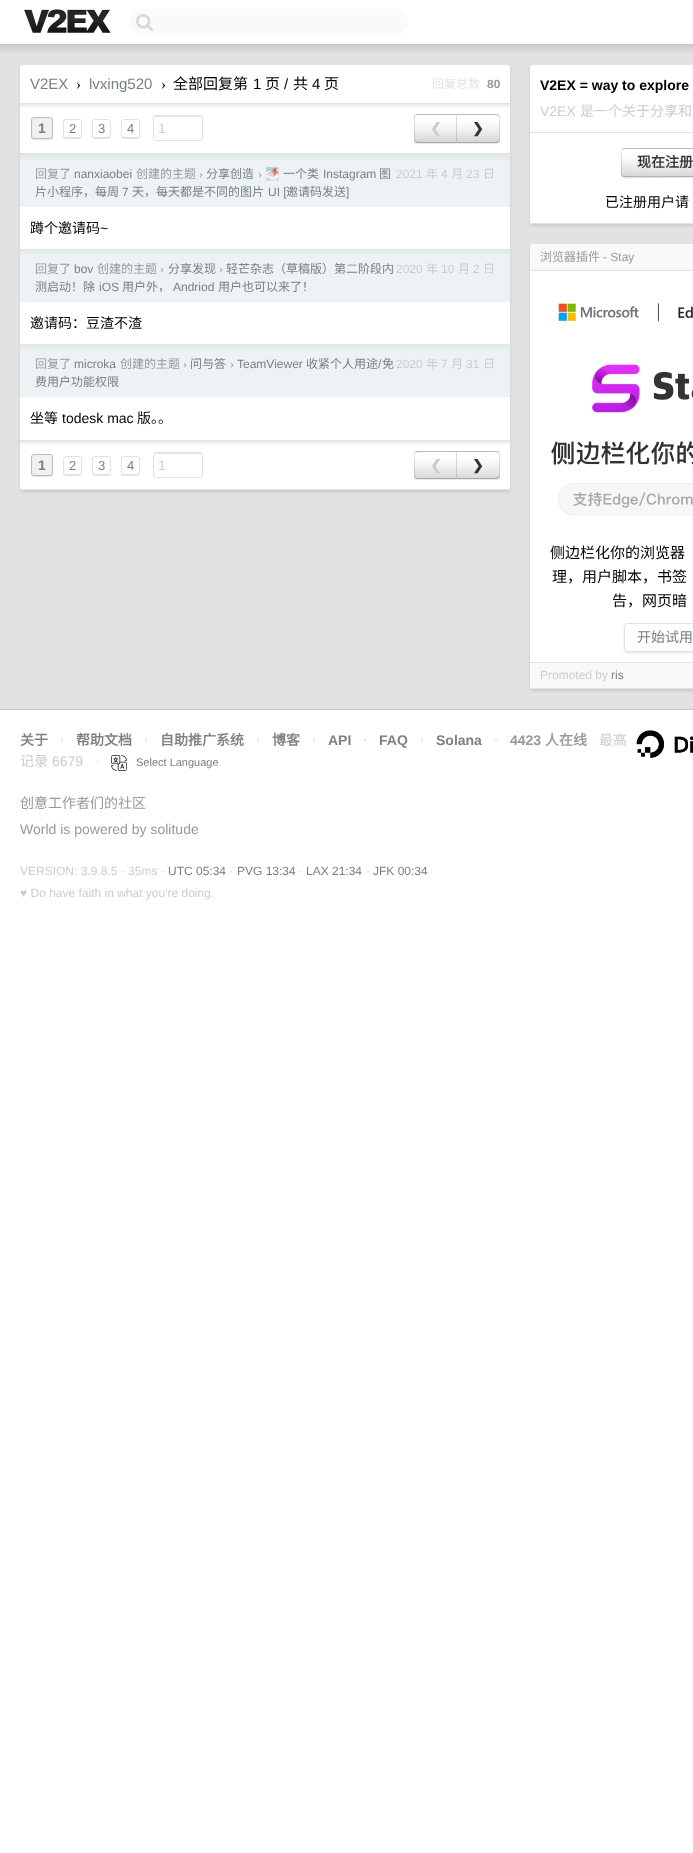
<svg xmlns="http://www.w3.org/2000/svg" width="693" height="1853">
<style>
.a{font:15px Liberation Sans;fill:#778087}
.b{font:15px Liberation Serif;fill:#000}
.c{font:15px Noto Sans CJK SC;fill:#000}
.d{font:15px Liberation Sans;fill:#000}
.e{font:12px Noto Sans CJK SC;fill:#e2e2e2}
.f{font:bold 12px Liberation Sans;fill:#999}
.g{font:bold 14px Liberation Sans;fill:#778087}
.h{font:13px Liberation Sans;fill:#778087}
.i{font:14px Liberation Sans;fill:#ccc}
.j{font:bold 14px DejaVu Sans;fill:#ccc}
.k{font:bold 14px DejaVu Sans;fill:#333}
.l{font:12px Noto Sans CJK SC;fill:#999}
.m{font:12px Liberation Sans;fill:#778087}
.n{font:12px Liberation Serif;fill:#999}
.o{font:12px Noto Sans CJK SC;fill:#778087}
.p{font:12px Noto Color Emoji;fill:#778087}
.q{font:12px Liberation Sans;fill:#ccc}
.r{font:12px Noto Sans CJK SC;fill:#ccc}
.s{font:14px Noto Sans CJK SC;fill:#000}
.t{font:14px Liberation Sans;fill:#000}
.u{font:bold 14px Liberation Sans;fill:#000}
.v{font:14px Noto Sans CJK SC;fill:#ccc}
.w{font:bold 14px Noto Sans CJK SC;fill:#333}
.x{font:12px Liberation Sans;fill:#999}
.y{font:14px Noto Sans CJK SC;fill:#778087}
.z{font:bold 14px Noto Sans CJK SC;fill:#808080}
.a1{font:bold 14px Liberation Sans;fill:#e2e2e2}
.b1{font:bold 14px Liberation Sans;fill:#808080}
.c1{font:bold 14px Liberation Sans;fill:#999}
.d1{font:bold 14px Noto Sans CJK SC;fill:#999}
.e1{font:14px Liberation Sans;fill:#e2e2e2}
.f1{font:11px Liberation Sans;fill:#778087}
.g1{font:14px Noto Sans CJK SC;fill:#999}
.h1{font:14px Liberation Sans;fill:#999}
</style>
<rect width="100%" height="100%" fill="#fff"/>
<path fill="#c7c7c7" d="M0 44h693v1H0z"/>
<image href="1.png" x="24" y="9" width="87" height="24"/>
<rect fill="#fafafa" x="130" y="9" width="278" height="26" rx="13"/>
<image href="2.png" x="136" y="14" width="17" height="17"/>
<path fill="#e2e2e2" d="M0 45h693v664H0z"/>
<image href="3.png" x="0" y="45" width="693" height="8"/>
<rect fill="#0000001a" filter="blur(1.5px)" x="20" y="67" width="490" height="425" rx="3"/>
<rect fill="#fff" x="20" y="65" width="490" height="425" rx="3"/>
<path fill="#e2e2e2" d="M22 489h487v1H22z"/>
<path fill="#e2e2e2" d="M20 103h490v1H20z"/>
<image href="4.png" x="20" y="104" width="490" height="4"/>
<path fill="#e2e2e2" d="M20 153h490v1H20z"/>
<rect fill="#0000001a" filter="blur(0.5px)" x="31" y="118" width="22" height="22" rx="3"/>
<rect fill="#f0f0f0" stroke="#bbb" x="31.5" y="117.5" width="21" height="21" rx="2.5"/>
<rect fill="#0000001a" filter="blur(0.5px)" x="63" y="120" width="19" height="19" rx="3"/>
<rect fill="#fff" stroke="#e2e2e2" x="63.5" y="119.5" width="18" height="18" rx="2.5"/>
<rect fill="#0000001a" filter="blur(0.5px)" x="92" y="120" width="19" height="19" rx="3"/>
<rect fill="#fff" stroke="#e2e2e2" x="92.5" y="119.5" width="18" height="18" rx="2.5"/>
<rect fill="#0000001a" filter="blur(0.5px)" x="121" y="120" width="19" height="19" rx="3"/>
<rect fill="#fff" stroke="#e2e2e2" x="121.5" y="119.5" width="18" height="18" rx="2.5"/>
<path fill="#e6e6e6" d="M156 117h44c1 0 2 1 2 2c0-5-5-3-9-3h-30c-4 0-9-2-9 3c0-1 1-2 2-2z"/>
<rect fill="none" stroke="#e2e2e2" x="153.5" y="115.5" width="49" height="25" rx="2.5"/>
<path fill="#ececed" d="M414 140v1c0 2 1 3 3 3h39v-1h-39c-2 0-3-1-3-3z"/>
<path fill="#fff" d="M417 114h39v29h-39c-1.5 0-3-1.5-3-3v-23c0-1.5 1.5-3 3-3z"/>
<image href="5.png" x="414" y="114" width="42" height="29"/>
<path fill="#50505a33" d="M417 114l-2 1l1 1l1-1h39v-1z"/>
<path fill="#50505a59" d="M456 143v-1h-38l-2-1l-1 1l2 1z"/>
<path fill="#50505a33" d="M414 117v23c0 1 0 2 1 2l.5-.5c-.5-1.5-.5-4-.5-9.5v-16l.5-.5l-.5-.5c-1 0-1 1-1 2z"/>
<path fill="#ececed" d="M456 143v1h41c2 0 3-1 3-3v-1c0 2-1 3-3 3z"/>
<path fill="#fff" d="M456 114h41c1.5 0 3 1.5 3 3v23c0 1.5-1.5 3-3 3h-41z"/>
<image href="6.png" x="456" y="114" width="44" height="29"/>
<path fill="#50505a33" d="M456 114l1 1h33c5 0 7 0 8 1l1-1c-1-1-4-1-9-1z"/>
<path fill="#50505a33" d="M500 140.5l-1 1.5l-1-1c2.5-1 1-11 1-13c0-2 1.5-11-1-12l1-1l1 1.5z"/>
<path fill="#50505a59" d="M490 143c5 0 8 0 9-1l-1-1c-1 1-3 1-8 1h-33l-1 1z"/>
<path fill="#50505a33" d="M456 114v29l1-1v-27z"/>
<path fill="#edf3f5" d="M20 154h490v53H20z"/>
<image href="7.png" x="20" y="154" width="490" height="6"/>
<path fill="#edf3f5" d="M20 249h490v53H20z"/>
<image href="7.png" x="20" y="249" width="490" height="6"/>
<path fill="#edf3f5" d="M20 344h490v53H20z"/>
<image href="7.png" x="20" y="344" width="490" height="6"/>
<path fill="#e2e2e2" d="M20 440h490v1H20z"/>
<image href="4.png" x="20" y="441" width="490" height="4"/>
<rect fill="#0000001a" filter="blur(0.5px)" x="31" y="455" width="22" height="22" rx="3"/>
<rect fill="#f0f0f0" stroke="#bbb" x="31.5" y="454.5" width="21" height="21" rx="2.5"/>
<rect fill="#0000001a" filter="blur(0.5px)" x="63" y="457" width="19" height="19" rx="3"/>
<rect fill="#fff" stroke="#e2e2e2" x="63.5" y="456.5" width="18" height="18" rx="2.5"/>
<rect fill="#0000001a" filter="blur(0.5px)" x="92" y="457" width="19" height="19" rx="3"/>
<rect fill="#fff" stroke="#e2e2e2" x="92.5" y="456.5" width="18" height="18" rx="2.5"/>
<rect fill="#0000001a" filter="blur(0.5px)" x="121" y="457" width="19" height="19" rx="3"/>
<rect fill="#fff" stroke="#e2e2e2" x="121.5" y="456.5" width="18" height="18" rx="2.5"/>
<path fill="#e6e6e6" d="M156 454h44c1 0 2 1 2 2c0-5-5-3-9-3h-30c-4 0-9-2-9 3c0-1 1-2 2-2z"/>
<rect fill="none" stroke="#e2e2e2" x="153.5" y="452.5" width="49" height="25" rx="2.5"/>
<path fill="#ececed" d="M414 476v1c0 2 1 3 3 3h39v-1h-39c-2 0-3-1-3-3z"/>
<path fill="#fff" d="M417 451h39v28h-39c-1.5 0-3-1.5-3-3v-22c0-1.5 1.5-3 3-3z"/>
<image href="8.png" x="414" y="451" width="42" height="28"/>
<path fill="#50505a33" d="M417 451l-2 1l1 1c1-2 35-1 40-1v-1z"/>
<path fill="#50505a59" d="M456 479v-1h-40v-1l-1 1l2 1z"/>
<path fill="#50505a33" d="M414 454v22c0 1 0 2 1 2l.5-.5l-.5-4.5v-12l-.5-6c0-1 .5-2 1-2.5l-.5-.5c-1 0-1 1-1 2z"/>
<path fill="#ececed" d="M456 479v1h41c2 0 3-1 3-3v-1c0 2-1 3-3 3z"/>
<path fill="#fff" d="M456 451h41c1.5 0 3 1.5 3 3v22c0 1.5-1.5 3-3 3h-41z"/>
<image href="9.png" x="456" y="451" width="44" height="28"/>
<path fill="#50505a33" d="M456 451l1 1h33c5 0 7 0 8 1l1-1c-1-1-4-1-9-1z"/>
<path fill="#50505a33" d="M500 476.5l-1 1.5l-1-1c2.5-1 1-10 1-12c0-2 1.5-11-1-12l1-1l1 1.5z"/>
<path fill="#50505a59" d="M490 479c5 0 8 0 9-1l-1-1c-1 1-3 1-8 1h-33l-1 1z"/>
<path fill="#50505a33" d="M456 451v28l1-1v-26z"/>
<rect fill="#0000001a" filter="blur(1.5px)" x="530" y="67" width="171" height="159" rx="3"/>
<rect fill="#fff" x="530" y="65" width="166" height="159" rx="3"/>
<path fill="#e2e2e2" d="M532 223h161v1H532z"/>
<path fill="#e2e2e2" d="M530 132h163v1H530z"/>
<path fill="#ececed" d="M621 174c0 8 13 4 17 4h54c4 0 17 4 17-4c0 2-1 3-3 3h-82c-2 0-3-1-3-3z"/>
<rect fill="#fff" x="621" y="148" width="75" height="29" rx="3"/>
<image href="10.png" x="621" y="148" width="72" height="29"/>
<path fill="none" stroke="#50505a59" d="M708 176l-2 .5h-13.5c-7.5 0-68 1-70-.5h-.5"/>
<path fill="none" stroke="#50505a33" d="M622 176c-1.5-2-.5-7.5-.5-9.5c0-21-4.5-18 16-18h55c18.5 0 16-3.5 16 14c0 2.5 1 11.5-.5 13.5"/>
<rect fill="#0000001a" filter="blur(1.5px)" x="530" y="246" width="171" height="445" rx="3"/>
<rect fill="#fff" x="530" y="244" width="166" height="445" rx="3"/>
<path fill="#e2e2e2" d="M532 688h161v1H532z"/>
<path fill="#f9f9f9" d="M533 244h160c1.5 0 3 1.5 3 3v24h-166v-24c0-1.5 1.5-3 3-3z"/>
<path fill="#e2e2e2" d="M530 270h163v1H530z"/>
<image href="11.png" x="551" y="303" width="142" height="213"/>
<path fill="#e2e2e2" d="M530 662h163v1H530z"/>
<rect fill="#0000001a" filter="blur(1px)" x="624" y="624" width="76" height="29" rx="4"/>
<rect fill="#fff" stroke="#e2e2e2" x="624.5" y="623.5" width="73" height="28" rx="3.5"/>
<path fill="#f9f9f9" d="M530 663h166v22c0 1.5-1.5 3-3 3h-160c-1.5 0-3-1.5-3-3z"/>
<path fill="#c7c7c7" d="M0 709h693v1H0z"/>
<image href="12.png" x="636" y="730" width="57" height="28"/>
<image href="13.png" x="111" y="755" width="16" height="16"/>
<text class="a" x="30" y="89">V2EX</text>
<text class="b" x="76" y="89">›</text>
<text class="a" x="89" y="89">lvxing520</text>
<text class="b" x="161" y="89">›</text>
<text class="c" x="173" y="89">全部回复第</text>
<text class="d" x="253" y="89">1</text>
<text class="c" x="265" y="89">页</text>
<text class="d" x="284" y="89">/</text>
<text class="c" x="293" y="89">共</text>
<text class="d" x="312" y="89">4</text>
<text class="c" x="324" y="89">页</text>
<text class="e" x="432" y="88">回复总数</text>
<text class="f" x="487" y="88">80</text>
<text class="g" x="38" y="133">1</text>
<text class="h" x="69" y="133">2</text>
<text class="h" x="98" y="133">3</text>
<text class="h" x="127" y="133">4</text>
<text class="i" x="158" y="133">1</text>
<text class="j" x="430" y="133">❮</text>
<text class="k" x="472" y="133">❯</text>
<text class="l" x="35" y="178">回复了</text>
<text class="m" x="74" y="178">nanxiaobei</text>
<text class="l" x="136" y="178">创建的主题</text>
<text class="n" x="199" y="178">›</text>
<text class="o" x="206" y="178">分享创造</text>
<text class="n" x="258" y="178">›</text>
<text class="p" x="265" y="178">🌁</text>
<text class="o" x="283" y="178">一个类</text>
<text class="m" x="323" y="178">Instagram</text>
<text class="o" x="379" y="178">图</text>
<text class="q" x="396" y="178">2021</text>
<text class="r" x="426" y="178">年</text>
<text class="q" x="441" y="178">4</text>
<text class="r" x="451" y="178">月</text>
<text class="q" x="466" y="178">23</text>
<text class="r" x="483" y="178">日</text>
<text class="o" x="35" y="196">片小程序，每周</text>
<text class="m" x="122" y="196">7</text>
<text class="o" x="132" y="196">天，每天都是不同的图片</text>
<text class="m" x="268" y="196">UI [</text>
<text class="o" x="286" y="196">邀请码发送</text>
<text class="m" x="346" y="196">]</text>
<text class="s" x="30" y="233">蹲个邀请码</text>
<text class="t" x="100" y="233">~</text>
<text class="l" x="35" y="273">回复了</text>
<text class="m" x="74" y="273">bov</text>
<text class="l" x="97" y="273">创建的主题</text>
<text class="n" x="160" y="273">›</text>
<text class="o" x="168" y="273">分享发现</text>
<text class="n" x="219" y="273">›</text>
<text class="o" x="226" y="273">轻芒杂志（草稿版）第二阶段内</text>
<text class="q" x="396" y="273">2020</text>
<text class="r" x="426" y="273">年</text>
<text class="q" x="441" y="273">10</text>
<text class="r" x="458" y="273">月</text>
<text class="q" x="473" y="273">2</text>
<text class="r" x="483" y="273">日</text>
<text class="o" x="35" y="291">测启动！除</text>
<text class="m" x="99" y="291">iOS</text>
<text class="o" x="122" y="291">用户外，</text>
<text class="m" x="173" y="291">Andriod</text>
<text class="o" x="218" y="291">用户也可以来了！</text>
<text class="s" x="30" y="328">邀请码：豆渣不渣</text>
<text class="l" x="35" y="368">回复了</text>
<text class="m" x="74" y="368">microka</text>
<text class="l" x="120" y="368">创建的主题</text>
<text class="n" x="183" y="368">›</text>
<text class="o" x="190" y="368">问与答</text>
<text class="n" x="230" y="368">›</text>
<text class="m" x="237" y="368">TeamViewer</text>
<text class="o" x="306" y="368">收紧个人用途</text>
<text class="m" x="378" y="368">/</text>
<text class="o" x="382" y="368">免</text>
<text class="q" x="396" y="368">2020</text>
<text class="r" x="426" y="368">年</text>
<text class="q" x="441" y="368">7</text>
<text class="r" x="451" y="368">月</text>
<text class="q" x="466" y="368">31</text>
<text class="r" x="483" y="368">日</text>
<text class="o" x="35" y="386">费用户功能权限</text>
<text class="s" x="30" y="423">坐等</text>
<text class="t" x="62" y="423">todesk mac</text>
<text class="s" x="137" y="423">版。。</text>
<text class="g" x="38" y="470">1</text>
<text class="h" x="69" y="470">2</text>
<text class="h" x="98" y="470">3</text>
<text class="h" x="127" y="470">4</text>
<text class="i" x="158" y="470">1</text>
<text class="j" x="430" y="470">❮</text>
<text class="k" x="472" y="470">❯</text>
<text class="u" x="540" y="90">V2EX = way to explore</text>
<text class="i" x="540" y="116">V2EX</text>
<text class="v" x="580" y="116">是一个关于分享和</text>
<text class="w" x="637" y="167">现在注册</text>
<text class="s" x="605" y="207">已注册用户请</text>
<text class="l" x="540" y="261">浏览器插件</text>
<text class="x" x="603" y="261">- Stay</text>
<text class="c" x="550" y="558" word-spacing="1">侧边栏化你的浏览器</text>
<text class="c" x="552" y="582">理，用户脚本，书签</text>
<text class="c" x="612" y="606">告，网页暗</text>
<text class="y" x="637" y="642">开始试用</text>
<text class="q" x="540" y="679">Promoted by</text>
<text class="m" x="611" y="679">ris</text>
<text class="z" x="20" y="745">关于</text>
<text class="a1" x="60" y="745">·</text>
<text class="z" x="76" y="745">帮助文档</text>
<text class="a1" x="144" y="745">·</text>
<text class="z" x="160" y="745">自助推广系统</text>
<text class="a1" x="256" y="745">·</text>
<text class="z" x="272" y="745">博客</text>
<text class="a1" x="312" y="745">·</text>
<text class="b1" x="328" y="745">API</text>
<text class="a1" x="363" y="745">·</text>
<text class="b1" x="379" y="745">FAQ</text>
<text class="a1" x="420" y="745">·</text>
<text class="b1" x="436" y="745">Solana</text>
<text class="a1" x="494" y="745">·</text>
<text class="c1" x="510" y="745">4423</text>
<text class="d1" x="545" y="745">人在线</text>
<text class="v" x="599" y="745">最高</text>
<text class="v" x="20" y="766">记录</text>
<text class="i" x="52" y="766">6679</text>
<text class="e1" x="95" y="766">·</text>
<text class="f1" x="136" y="766">Select Language</text>
<text class="g1" x="20" y="808">创意工作者们的社区</text>
<text class="h1" x="20" y="834">World is powered by solitude</text>
<text class="q" x="20" y="875">VERSION: 3.9.8.5 · 35ms ·</text>
<text class="m" x="168" y="875">UTC 05:34</text>
<text class="q" x="229" y="875">·</text>
<text class="m" x="237" y="875">PVG 13:34</text>
<text class="q" x="299" y="875">·</text>
<text class="m" x="306" y="875">LAX 21:34</text>
<text class="q" x="366" y="875">·</text>
<text class="m" x="373" y="875">JFK 00:34</text>
<text class="q" x="20" y="897">♥ Do have faith in what you're doing.</text>
</svg>
